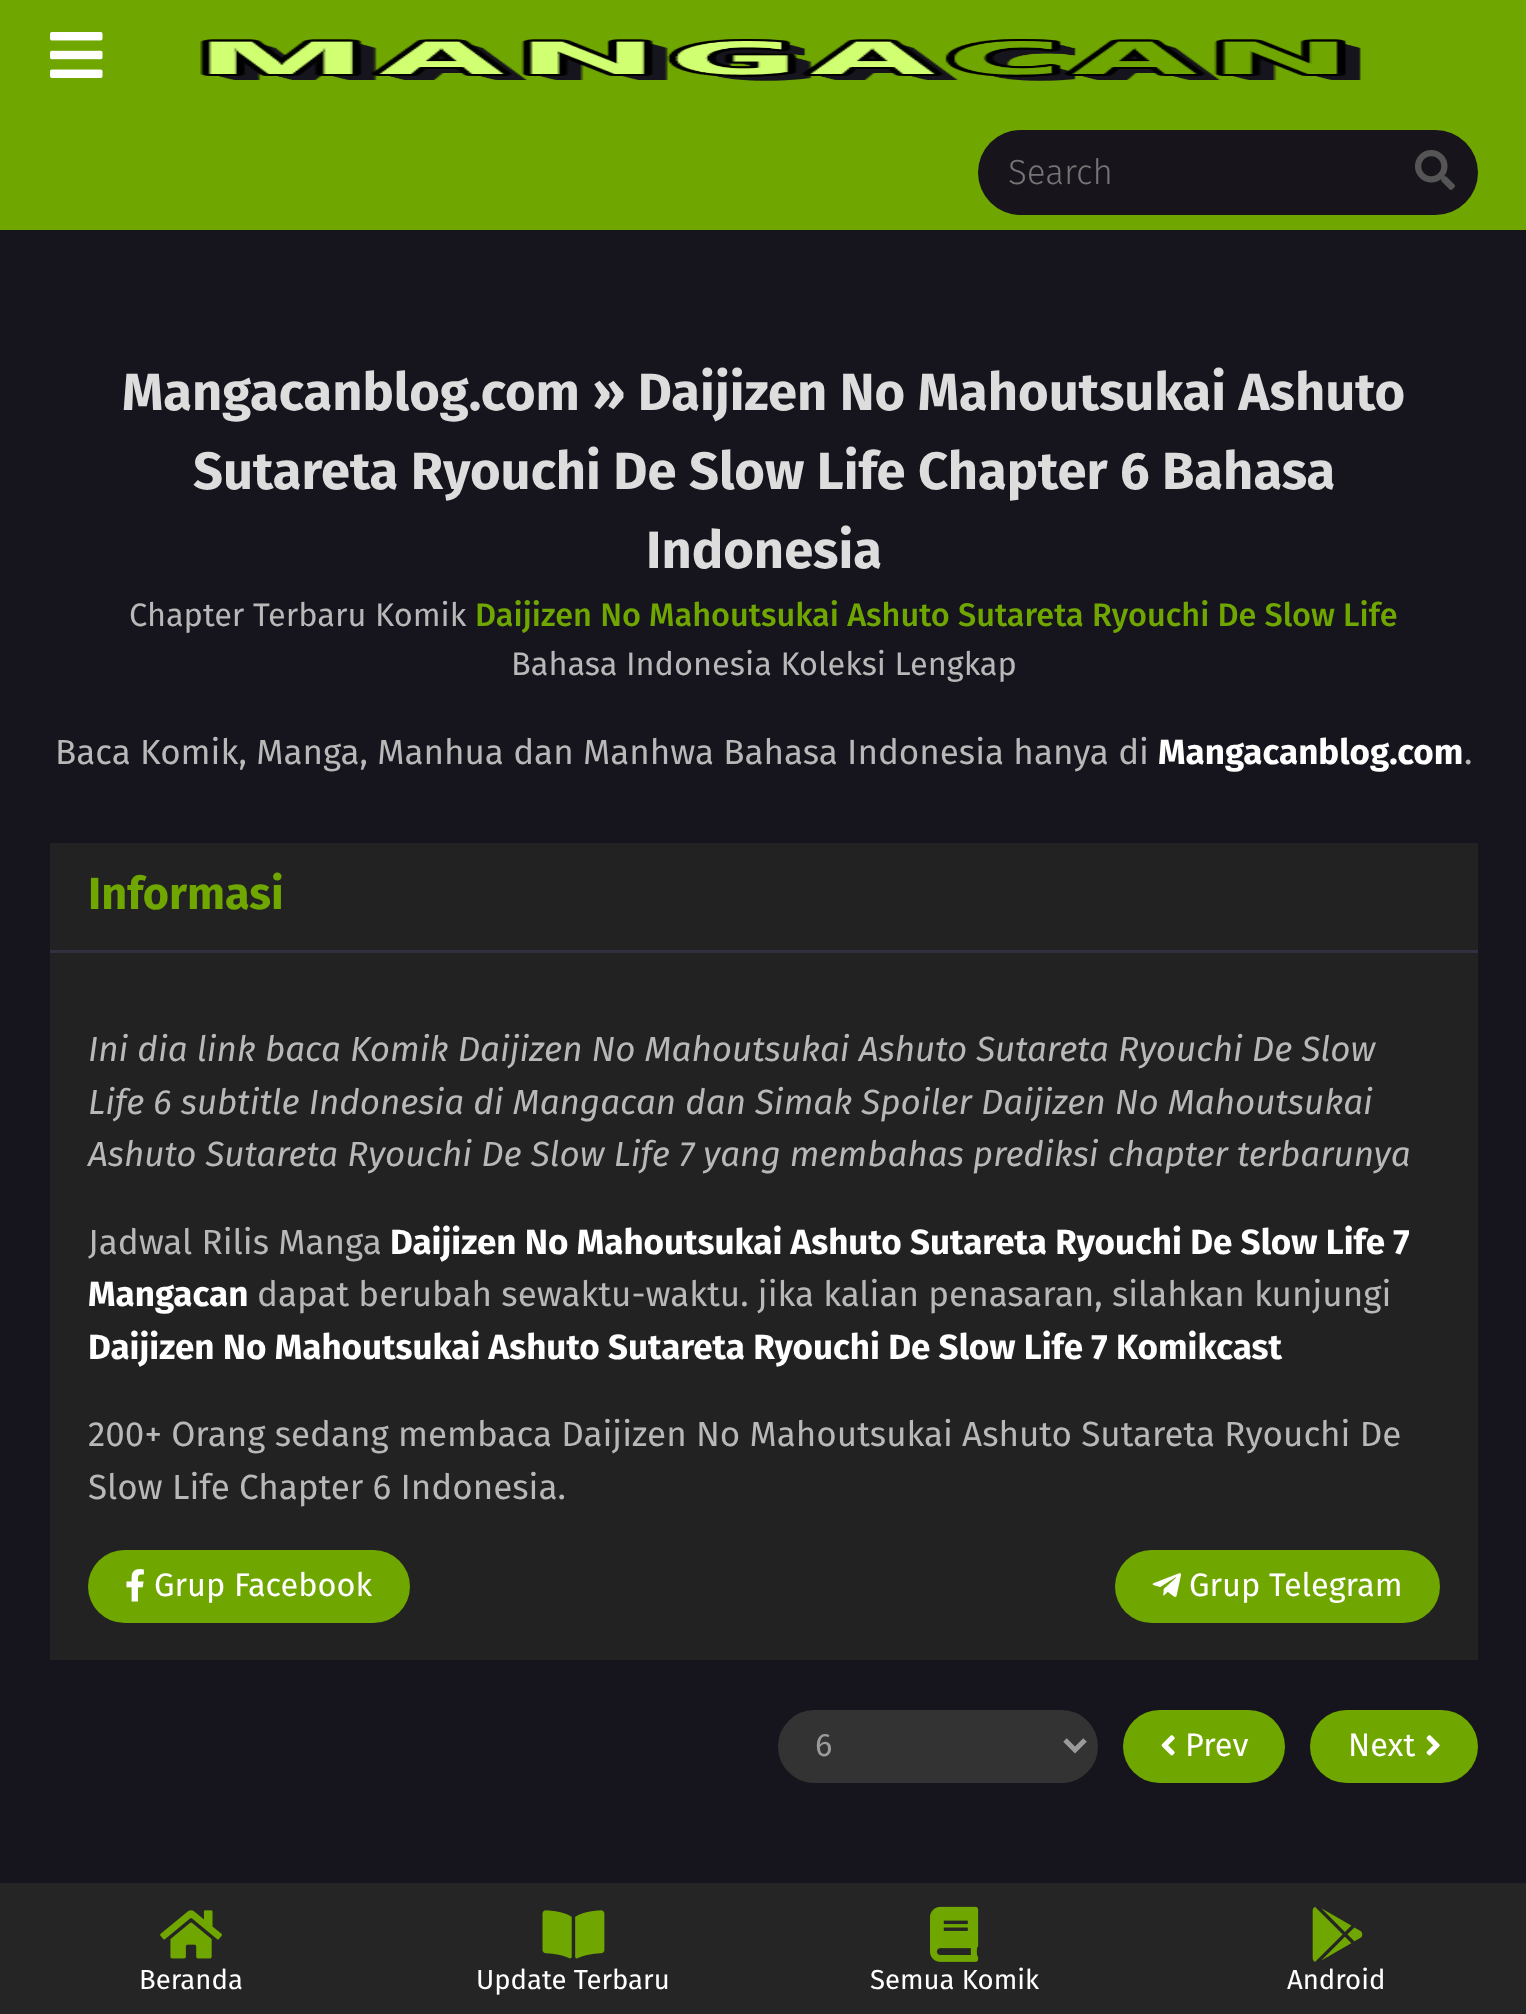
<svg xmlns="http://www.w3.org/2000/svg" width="1526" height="2014">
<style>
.a{font:300 35px Fira Sans;fill:#757575}
.b{font:bold 52.5px Fira Sans;fill:#ddd}
.c{font:32.5px Fira Sans;fill:#b8b8b8}
.d{font:500 32.5px Fira Sans;fill:#70a600}
.e{font:35px Fira Sans;fill:#b8b8b8}
.f{font:bold 35px Fira Sans;fill:#fff}
.g{font:bold 45px Fira Sans;fill:#70a600}
.h{font:italic 35px Fira Sans;fill:#b8b8b8}
.i{font:32.5px Fira Sans;fill:#fff}
.j{font:32.5px Fira Sans;fill:#9b9b9b}
.k{font:27.5px Fira Sans;fill:#fff}
</style>
<rect width="100%" height="100%" fill="#16151d"/>
<path fill="#70a600" d="M0 0h1526v230H0z"/>
<image href="1.png" x="50" y="32" width="53" height="46"/>
<image href="2.png" x="200" y="39" width="1161" height="42"/>
<rect fill="#17151b" x="978" y="130" width="500" height="85" rx="42.5"/>
<image href="3.png" x="1415" y="150" width="40" height="40"/>
<path fill="#222" d="M50 843h1428v817H50z"/>
<path fill="#312f40" d="M50 950h1428v3H50z"/>
<rect fill="#70a600" x="88" y="1550" width="322" height="73" rx="36.5"/>
<image href="4.png" x="126" y="1569" width="18" height="33"/>
<rect fill="#70a600" x="1115" y="1550" width="325" height="73" rx="36.5"/>
<image href="5.png" x="1152" y="1573" width="29" height="24"/>
<rect fill="#333" stroke="#333" stroke-width="3" x="779.5" y="1711.5" width="317" height="70" rx="35"/>
<path fill="none" stroke="#9b9b9b" stroke-width="5" d="M1065 1740l10 10l10-10"/>
<rect fill="#70a600" x="1123" y="1710" width="162" height="73" rx="36.5"/>
<image href="6.png" x="1161" y="1735" width="14" height="21"/>
<rect fill="#70a600" x="1310" y="1710" width="168" height="73" rx="36.5"/>
<image href="7.png" x="1426" y="1735" width="14" height="21"/>
<path fill="#252525" d="M0 1883h1526v131H0z"/>
<image href="8.png" x="160" y="1910" width="62" height="49"/>
<image href="9.png" x="542" y="1910" width="63" height="49"/>
<image href="10.png" x="930" y="1906" width="49" height="56"/>
<image href="11.png" x="1312" y="1907" width="51" height="55"/>
<text class="a" x="1008" y="184">Search</text>
<text class="b" x="122" y="410">Mangacanblog.com » Daijizen No Mahoutsukai Ashuto</text>
<text class="b" x="193" y="489">Sutareta Ryouchi De Slow Life Chapter 6 Bahasa</text>
<text class="b" x="646" y="568">Indonesia</text>
<text class="c" x="129" y="626">Chapter Terbaru Komik</text>
<text class="d" x="475" y="626">Daijizen No Mahoutsukai Ashuto Sutareta Ryouchi De Slow Life</text>
<text class="c" x="511" y="675">Bahasa Indonesia Koleksi Lengkap</text>
<text class="e" x="55" y="764">Baca Komik, Manga, Manhua dan Manhwa Bahasa Indonesia hanya di</text>
<text class="f" x="1158" y="764">Mangacanblog.com</text>
<text class="e" x="1464" y="764">.</text>
<text class="g" x="88" y="909">Informasi</text>
<text class="h" x="88" y="1061">Ini dia link baca Komik Daijizen No Mahoutsukai Ashuto Sutareta Ryouchi De Slow</text>
<text class="h" x="88" y="1114">Life 6 subtitle Indonesia di Mangacan dan Simak Spoiler Daijizen No Mahoutsukai</text>
<text class="h" x="88" y="1166">Ashuto Sutareta Ryouchi De Slow Life 7 yang membahas prediksi chapter terbarunya</text>
<text class="e" x="88" y="1254">Jadwal Rilis Manga</text>
<text class="f" x="390" y="1254">Daijizen No Mahoutsukai Ashuto Sutareta Ryouchi De Slow Life 7</text>
<text class="f" x="88" y="1306">Mangacan</text>
<text class="e" x="257" y="1306">dapat berubah sewaktu-waktu. jika kalian penasaran, silahkan kunjungi</text>
<text class="f" x="88" y="1359">Daijizen No Mahoutsukai Ashuto Sutareta Ryouchi De Slow Life 7 Komikcast</text>
<text class="e" x="88" y="1446">200+ Orang sedang membaca Daijizen No Mahoutsukai Ashuto Sutareta Ryouchi De</text>
<text class="e" x="88" y="1499">Slow Life Chapter 6 Indonesia.</text>
<text class="i" x="154" y="1596">Grup Facebook</text>
<text class="i" x="1189" y="1596">Grup Telegram</text>
<text class="j" x="815" y="1756">6</text>
<text class="i" x="1185" y="1756">Prev</text>
<text class="i" x="1348" y="1756">Next</text>
<text class="k" x="139" y="1989">Beranda</text>
<text class="k" x="476" y="1989">Update Terbaru</text>
<text class="k" x="870" y="1989">Semua Komik</text>
<text class="k" x="1287" y="1989">Android</text>
</svg>
